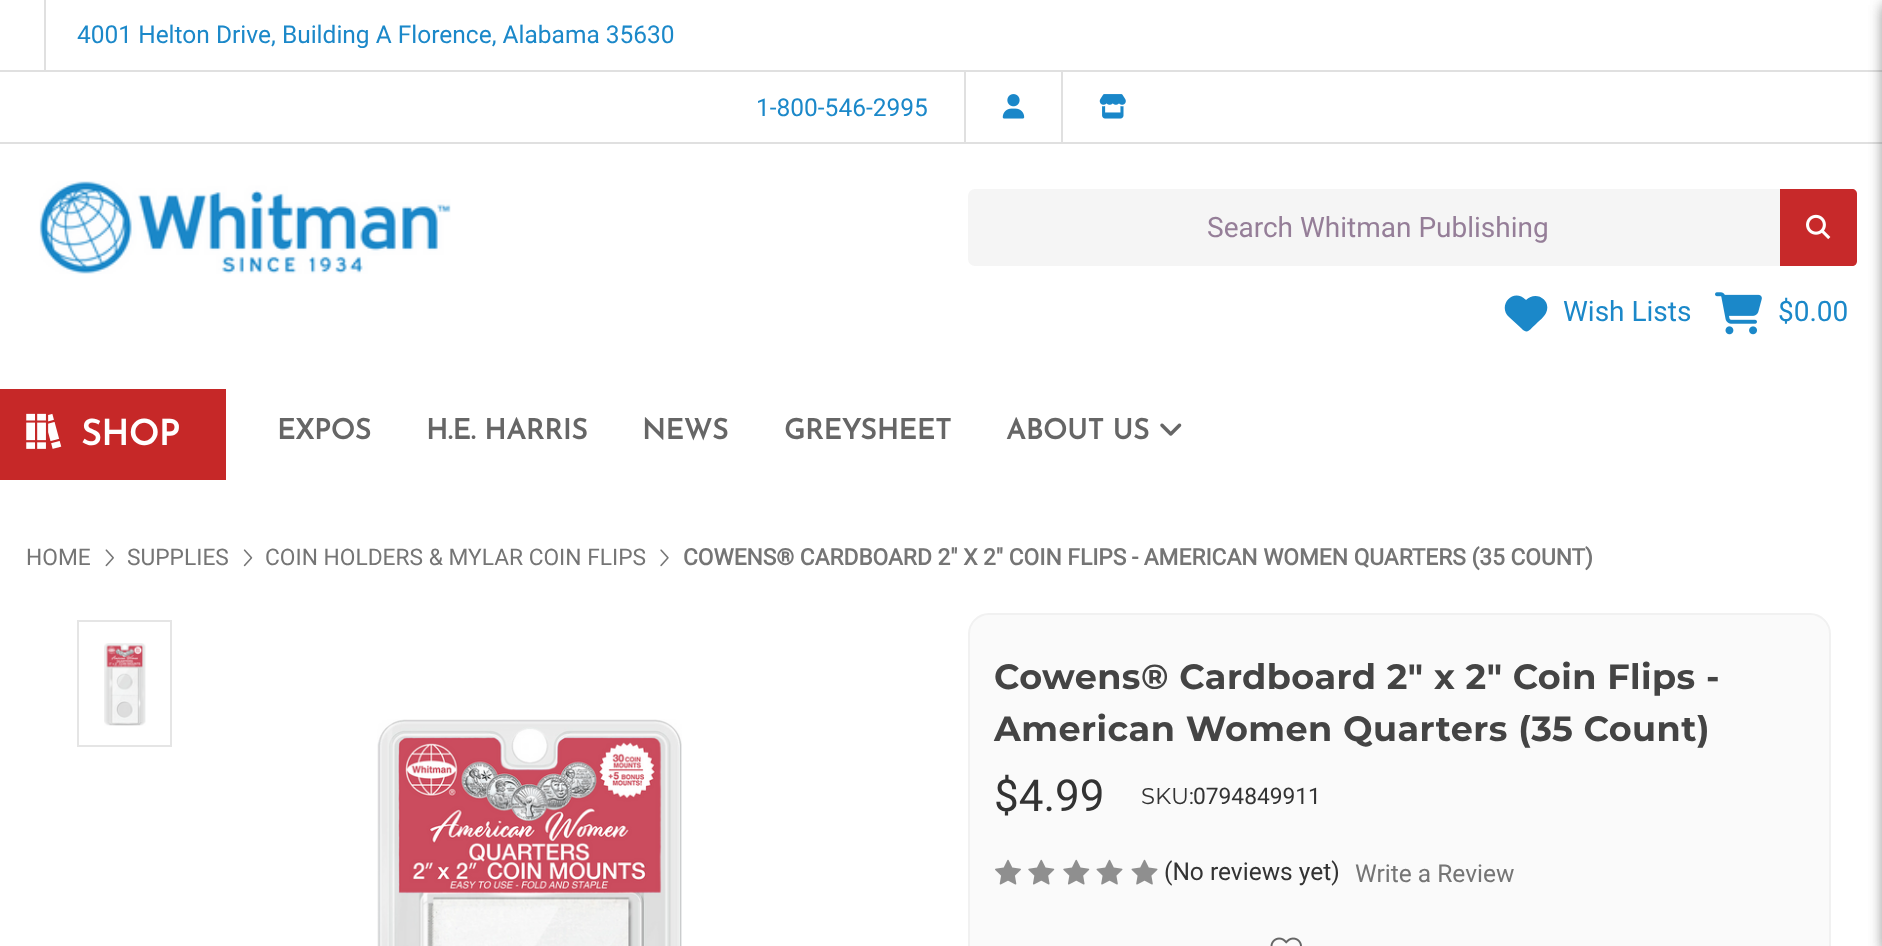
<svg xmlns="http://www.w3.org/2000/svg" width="1882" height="946">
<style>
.a{font:24.5px Roboto;fill:#1b88c9}
.b{font:28px Roboto;fill:#957e98}
.c{font:28px Roboto;fill:#1b88c9}
.d{font:bold 35px Josefin Sans;fill:#fff}
.e{font:bold 28px Josefin Sans;fill:#666}
.f{font:22.75px Roboto;fill:#757575}
.g{font:bold 22.75px Roboto;fill:#757575}
.h{font:bold 35px Montserrat;letter-spacing:0.45px;fill:#444}
.i{font:44px Roboto;fill:#333}
.j{font:22.75px Montserrat;fill:#333}
.k{font:22.75px Roboto;fill:#333}
.l{font:24.5px Roboto;fill:#333}
.m{font:24.5px Roboto;fill:#757575}
</style>
<rect width="100%" height="100%" fill="#fff"/>
<path fill="#e0e0e0" d="M0 142h1882v2H0z"/>
<path fill="#e0e0e0" d="M44 0h2v70H44z"/>
<path fill="#e0e0e0" d="M0 70h1882v2H0z"/>
<path fill="#e0e0e0" d="M964 72h2v70H964z"/>
<image href="1.png" x="1002" y="94" width="23" height="25"/>
<path fill="#e0e0e0" d="M1061 72h2v70H1061z"/>
<image href="2.png" x="1099" y="94" width="27" height="25"/>
<path fill="#0000003d" filter="blur(7px)" d="M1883 5h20v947H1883z"/>
<image href="3.png" x="39" y="181" width="412" height="93"/>
<rect fill="#f5f5f5" x="968" y="189" width="889" height="77" rx="7"/>
<path fill="#c7292a" d="M1780 189h72c3 0 5 2 5 5v67c0 3-2 5-5 5h-72z"/>
<image href="4.png" x="1806" y="214" width="25" height="26"/>
<path fill="#1b88c9" d="M1509 317l12 11c7 7 8 2 15-4c3-3 8-7 10-11c6-13-10-23-20-13c-13-13-29 6-17 17z"/>
<image href="5.png" x="1715" y="292" width="47" height="43"/>
<path fill="#0000003d" filter="blur(7px)" d="M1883 5h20v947H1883z"/>
<path fill="#c62828" d="M0 389h226v91H0z"/>
<image href="6.png" x="26" y="413" width="36" height="36"/>
<image href="7.png" x="1160" y="423" width="22" height="13"/>
<image href="8.png" x="105" y="549" width="9" height="18"/>
<image href="9.png" x="243" y="549" width="10" height="18"/>
<image href="10.png" x="660" y="549" width="9" height="18"/>
<path fill="none" stroke="#e5e5e5" stroke-width="2" d="M78 621h93v125H78z"/>
<image href="11.png" x="104" y="643" width="42" height="83"/>
<image href="12.png" x="377" y="719" width="305" height="227"/>
<rect fill="#fafafa" stroke="#f1f1f1" stroke-width="2" x="969" y="614" width="861" height="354" rx="20"/>
<image href="13.png" x="995" y="859" width="26" height="26"/>
<image href="14.png" x="1028" y="859" width="27" height="26"/>
<image href="14.png" x="1063" y="859" width="27" height="26"/>
<image href="15.png" x="1096" y="859" width="27" height="26"/>
<image href="15.png" x="1131" y="859" width="27" height="26"/>
<image href="16.png" x="1270" y="937" width="32" height="9"/>
<text class="a" x="77" y="43">4001 Helton Drive, Building A Florence, Alabama 35630</text>
<text class="a" x="756" y="116">1-800-546-2995</text>
<text class="b" x="1207" y="237">Search Whitman Publishing</text>
<text class="c" x="1563" y="321">Wish Lists</text>
<text class="c" x="1778" y="321">$0.00</text>
<text class="d" x="81" y="445">SHOP</text>
<text class="e" x="277" y="439">EXPOS</text>
<text class="e" x="426" y="439">H.E. HARRIS</text>
<text class="e" x="642" y="439">NEWS</text>
<text class="e" x="784" y="439">GREYSHEET</text>
<text class="e" x="1006" y="439">ABOUT US</text>
<text class="f" x="26" y="565">HOME</text>
<text class="f" x="127" y="565">SUPPLIES</text>
<text class="f" x="265" y="565">COIN HOLDERS &amp; MYLAR COIN FLIPS</text>
<text class="g" x="683" y="565">COWENS® CARDBOARD 2" X 2" COIN FLIPS - AMERICAN WOMEN QUARTERS (35 COUNT)</text>
<text class="h" x="994" y="689">Cowens® Cardboard 2" x 2" Coin Flips -</text>
<text class="h" x="994" y="741">American Women Quarters (35 Count)</text>
<text class="i" x="994" y="811">$4.99</text>
<text class="j" x="1141" y="804">SKU:</text>
<text class="k" x="1193" y="804">0794849911</text>
<text class="l" x="1164" y="880">(No reviews yet)</text>
<text class="m" x="1355" y="882">Write a Review</text>
</svg>
